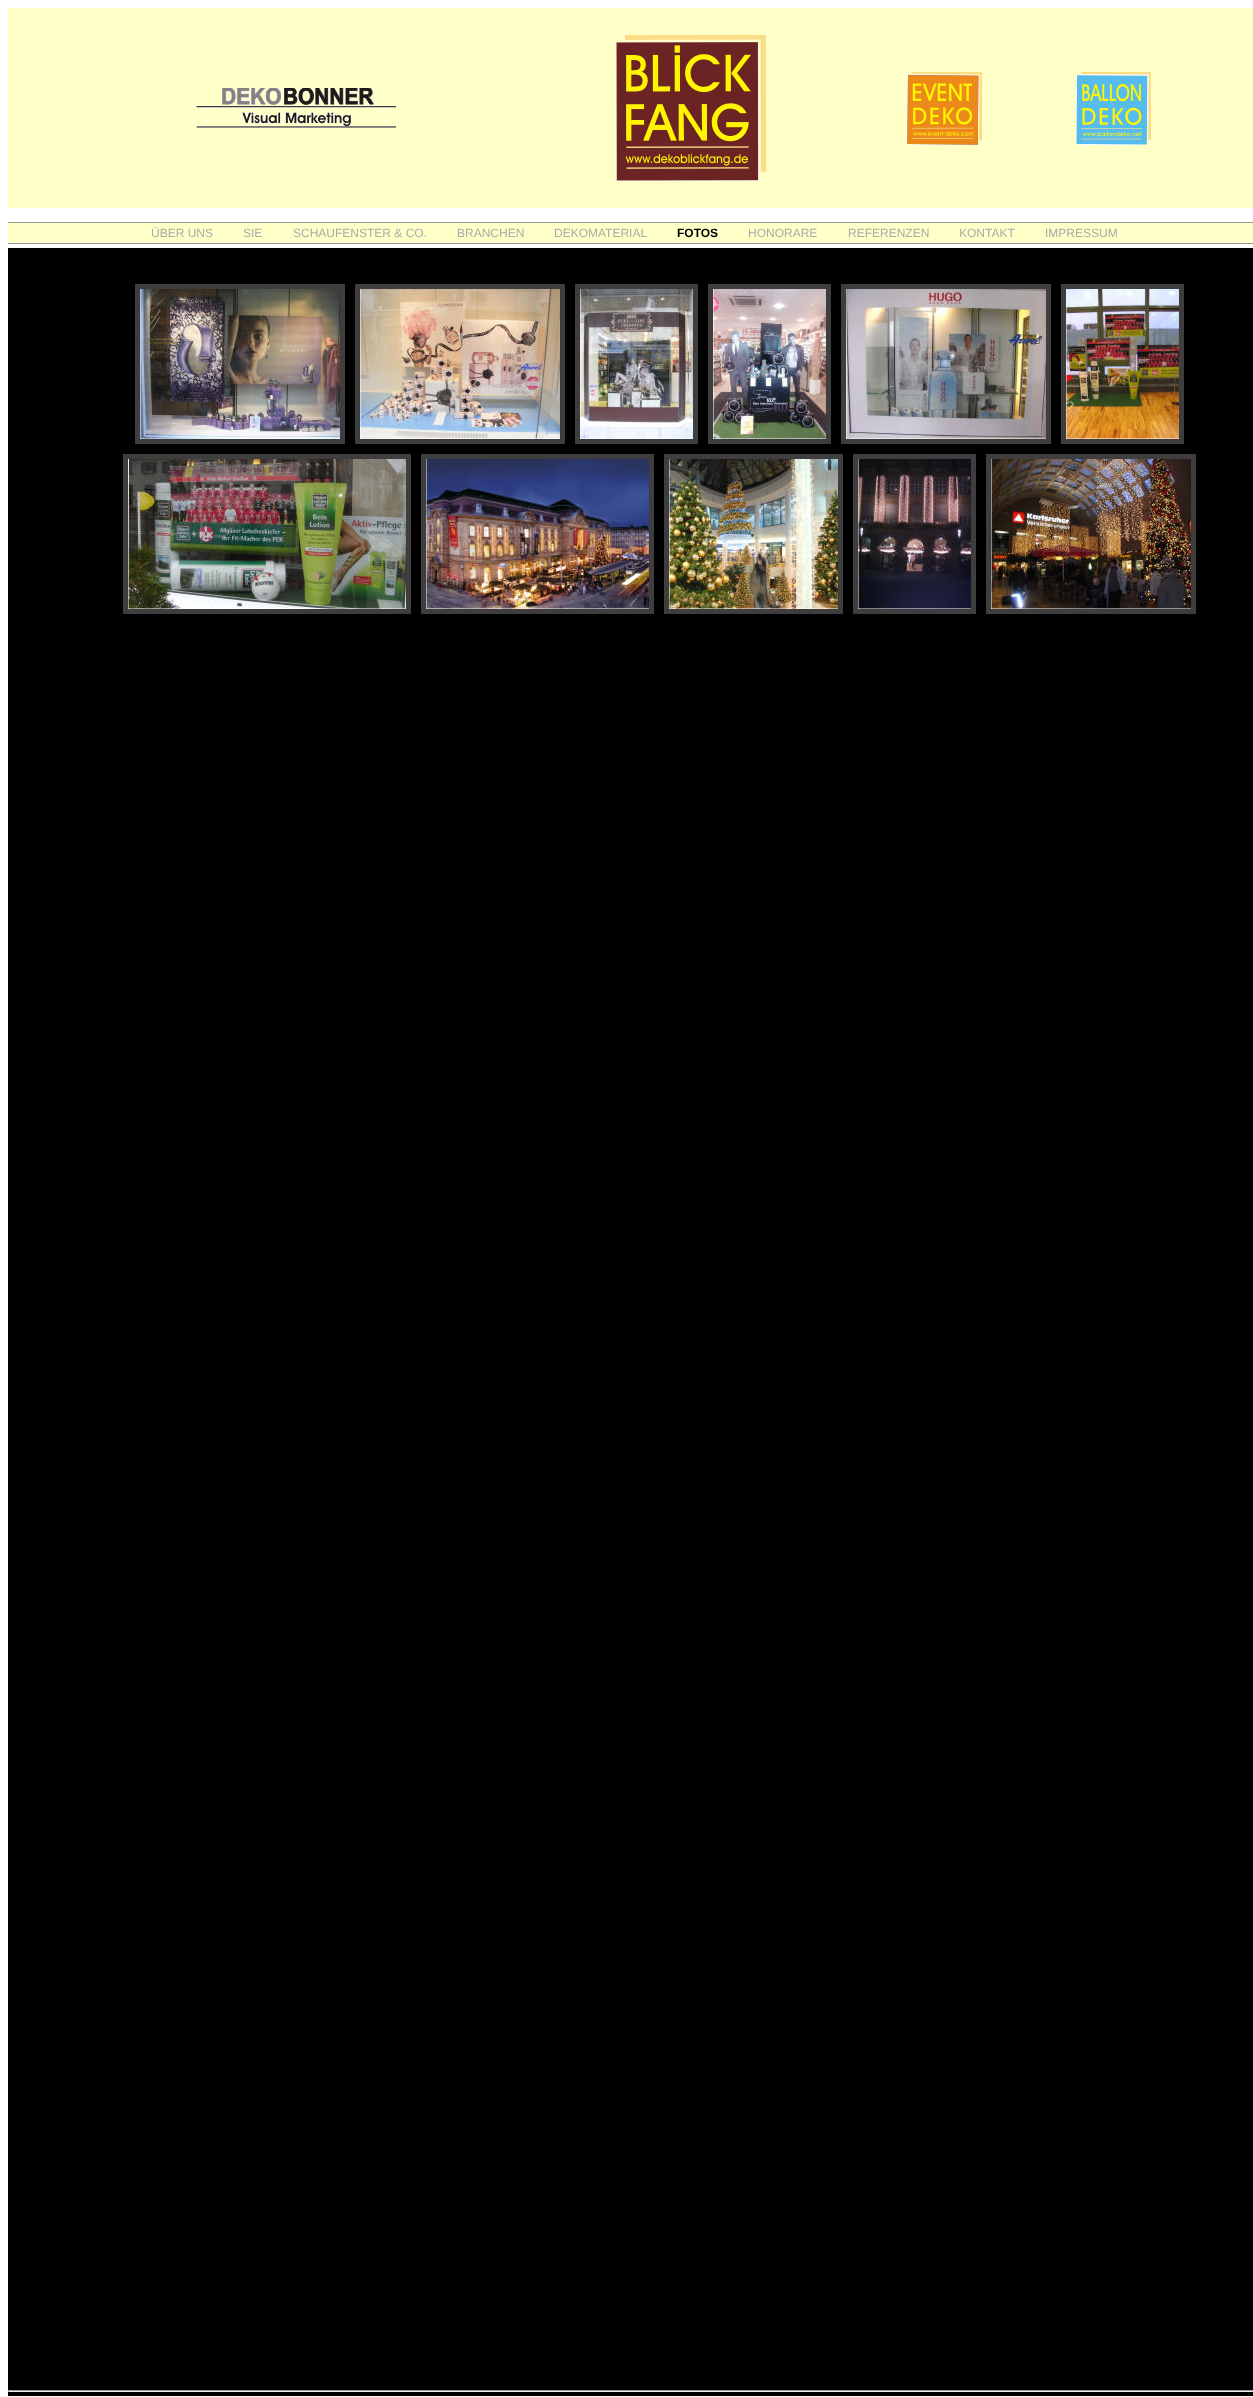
<svg xmlns="http://www.w3.org/2000/svg" width="1253" height="2397">
<style>
.a{font:12px Liberation Sans;fill:#aaa}
.b{font:bold 12px Liberation Sans;fill:#000}
</style>
<rect width="100%" height="100%" fill="#fff"/>
<path fill="#ffffc8" d="M8 8h1245v200H8z"/>
<image href="1.png" x="196" y="88" width="200" height="40"/>
<image href="2.png" x="616" y="35" width="150" height="146"/>
<image href="3.png" x="907" y="72" width="75" height="73"/>
<image href="4.png" x="1076" y="72" width="75" height="73"/>
<path fill="#ffffc8" d="M8 223h1245v20H8z"/>
<path fill="#999" d="M8 222h1245v1H8z"/>
<path fill="#999" d="M8 243h1245v1H8z"/>
<path fill="#000" d="M8 248h1245v2148H8z"/>
<path fill="none" stroke="#3e3e3e" stroke-width="5" d="M137.5 286.5h205v155H137.5z"/>
<path fill="none" stroke="#3e3e3e" stroke-width="5" d="M357.5 286.5h205v155H357.5z"/>
<path fill="none" stroke="#3e3e3e" stroke-width="5" d="M577.5 286.5h118v155H577.5z"/>
<path fill="none" stroke="#3e3e3e" stroke-width="5" d="M710.5 286.5h118v155H710.5z"/>
<path fill="none" stroke="#3e3e3e" stroke-width="5" d="M843.5 286.5h205v155H843.5z"/>
<path fill="none" stroke="#3e3e3e" stroke-width="5" d="M1063.5 286.5h118v155H1063.5z"/>
<image href="5.png" x="140" y="289" width="200" height="150"/>
<image href="6.png" x="360" y="289" width="200" height="150"/>
<image href="7.png" x="580" y="289" width="113" height="150"/>
<image href="8.png" x="713" y="289" width="113" height="150"/>
<image href="9.png" x="846" y="289" width="200" height="150"/>
<image href="10.png" x="1066" y="289" width="113" height="150"/>
<path fill="none" stroke="#3e3e3e" stroke-width="5" d="M125.5 456.5h283v155H125.5z"/>
<path fill="none" stroke="#3e3e3e" stroke-width="5" d="M423.5 456.5h228v155H423.5z"/>
<path fill="none" stroke="#3e3e3e" stroke-width="5" d="M666.5 456.5h174v155H666.5z"/>
<path fill="none" stroke="#3e3e3e" stroke-width="5" d="M855.5 456.5h118v155H855.5z"/>
<path fill="none" stroke="#3e3e3e" stroke-width="5" d="M988.5 456.5h205v155H988.5z"/>
<image href="11.png" x="128" y="459" width="278" height="150"/>
<image href="12.png" x="426" y="459" width="223" height="150"/>
<image href="13.png" x="669" y="459" width="169" height="150"/>
<image href="14.png" x="858" y="459" width="113" height="150"/>
<image href="15.png" x="991" y="459" width="200" height="150"/>
<path fill="#9f9f9f" d="M8 2390h1245v1H8z"/>
<path fill="#eee" d="M8 2391h1245v1H8z"/>
<path fill="#9f9f9f" d="M8 2390h1v2H8z"/>
<text class="a" x="151" y="237">ÜBER UNS</text>
<text class="a" x="243" y="237">SIE</text>
<text class="a" x="293" y="237">SCHAUFENSTER &amp; CO.</text>
<text class="a" x="457" y="237">BRANCHEN</text>
<text class="a" x="554" y="237">DEKOMATERIAL</text>
<text class="b" x="677" y="237">FOTOS</text>
<text class="a" x="748" y="237">HONORARE</text>
<text class="a" x="848" y="237">REFERENZEN</text>
<text class="a" x="959" y="237">KONTAKT</text>
<text class="a" x="1045" y="237">IMPRESSUM</text>
</svg>
